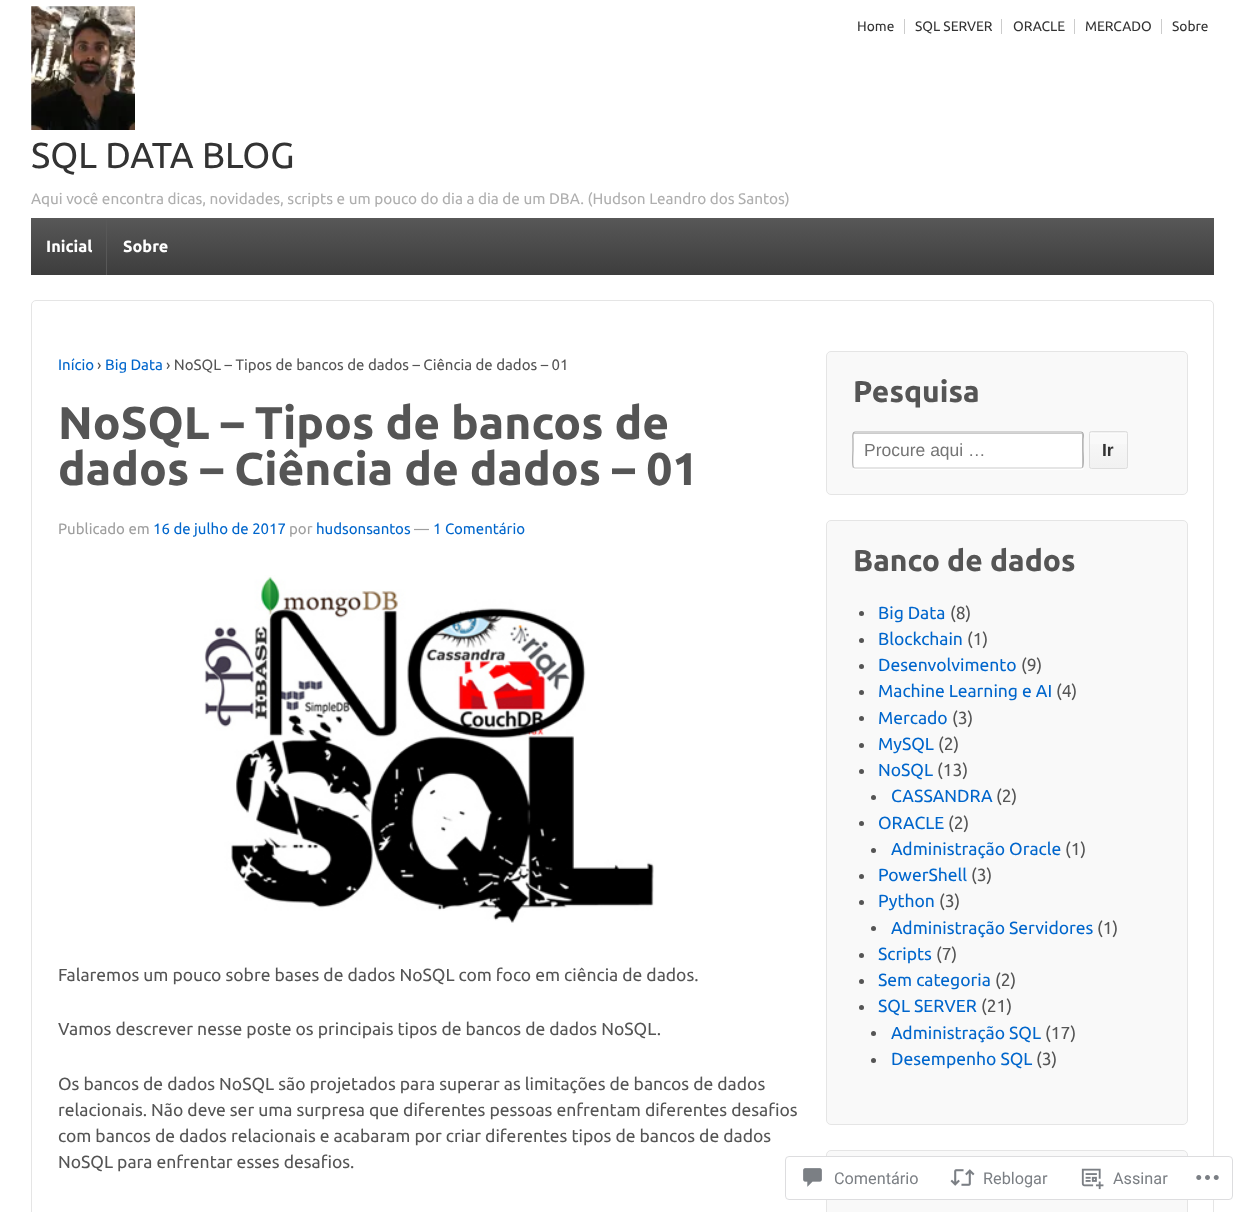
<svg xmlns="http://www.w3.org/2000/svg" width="1244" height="1212">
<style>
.a{font:13.75px Ubuntu;fill:#333}
.b{font:36px Ubuntu;fill:#333}
.c{font:15.3px Ubuntu;fill:#afafaf}
.d{font:bold 16.25px Ubuntu;fill:#fff}
.e{font:15px Ubuntu;fill:#06c}
.f{font:15px Ubuntu;fill:#555}
.g{font:bold 46px Ubuntu;fill:#555}
.h{font:15px Ubuntu;fill:#9f9f9f}
.i{font:17.5px Ubuntu;fill:#555}
.j{font:bold 30px Ubuntu;fill:#555}
.k{font:17.5px Liberation Sans;fill:#757575}
.l{font:bold 17.5px Liberation Sans;fill:#333}
.m{font:17.5px Ubuntu;fill:#06c}
.n{font:16.25px Roboto;fill:#7b7f84}
</style>
<defs>
<linearGradient id="g1" gradientUnits="userSpaceOnUse" x1="623" y1="217" x2="623" y2="275"><stop offset="0" stop-color="#585858"/><stop offset="1" stop-color="#3d3d3d"/></linearGradient>
<clipPath id="clip1"><rect x="1089" y="431" width="39" height="38" rx="2.5"/></clipPath>
<linearGradient id="g2" gradientUnits="userSpaceOnUse" x1="1108" y1="398" x2="1108" y2="433"><stop offset="0" stop-color="#f9f9f9"/><stop offset="1" stop-color="#f1f1f1"/></linearGradient>
<linearGradient id="g3" gradientUnits="userSpaceOnUse" x1="1108" y1="433" x2="1108" y2="468"><stop offset="0" stop-color="#f9f9f9"/><stop offset="1" stop-color="#f1f1f1"/></linearGradient>
</defs>
<rect width="100%" height="100%" fill="#fff"/>
<path fill="#ccc" d="M904 19h1v15H904z"/>
<path fill="#ccc" d="M1001 19h1v15H1001z"/>
<path fill="#ccc" d="M1074 19h1v15H1074z"/>
<path fill="#ccc" d="M1161 19h1v15H1161z"/>
<image href="1.png" x="31" y="6" width="104" height="124"/>
<path fill="url(#g1)" d="M31 218h1183v57H31z"/>
<path fill="#585858" d="M106 218h1v57H106z"/>
<rect fill="none" stroke="#e5e5e5" x="31.5" y="300.5" width="1182" height="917" rx="4.5"/>
<image href="2.png" x="204" y="575" width="450" height="348"/>
<rect fill="#f9f9f9" stroke="#e5e5e5" x="826.5" y="351.5" width="361" height="143" rx="4.5"/>
<path fill="#fff" d="M853 468c0 1 1 2 3 2h226c1 0 2-1 2-2v-34v32c0 2-1 3-3 3h-226c-1 0-2-1-2-1z"/>
<rect fill="#fff" x="853" y="431" width="231" height="38" rx="2.5"/>
<path fill="#ccc" d="M855 434h226c1 0 1 0 1 1v33l1-1v-33l-1-1h-228v2c0-1 0-1 1-1z"/>
<path fill="none" stroke="#ccc" stroke-width="1.2" d="M1082.5 467.5l-1.5 .5h-226l-1.5-.5"/>
<path fill="none" stroke="#aaa" stroke-width="1.2" d="M853.5 467.5c-1.5-1.5-.5-15-.5-17.5v-11c0-.5-1-7 2-7h226c3.5 0 2 6.5 2 7v11c0 2.5 1 16-.5 17.5"/>
<g clip-path="url(#clip1)">
<path fill="url(#g2)" d="M1089 431h39v2H1089z"/>
</g>
<path fill="url(#g3)" d="M1089 444h39v24H1089z"/>
<path fill="#fbfbfb" d="M1091 434h34c1 0 1 0 1 1c0-3.5-3-2-6.5-2h-23c-3.5 0-6.5-1.5-6.5 2c0-1 1-1 1-1z"/>
<rect fill="none" stroke="#ddd" x="1089.5" y="431.5" width="38" height="37" rx="2"/>
<rect fill="#f9f9f9" stroke="#e5e5e5" x="826.5" y="520.5" width="361" height="604" rx="4.5"/>
<circle fill="#555" cx="861.5" cy="613.5" r="2.5"/>
<circle fill="#555" cx="861.5" cy="640.5" r="2.5"/>
<circle fill="#555" cx="861.5" cy="666.5" r="2.5"/>
<circle fill="#555" cx="861.5" cy="692.5" r="2.5"/>
<circle fill="#555" cx="861.5" cy="718.5" r="2.5"/>
<circle fill="#555" cx="861.5" cy="745.5" r="2.5"/>
<circle fill="#555" cx="861.5" cy="771.5" r="2.5"/>
<circle fill="#555" cx="873.5" cy="797.5" r="2.5"/>
<circle fill="#555" cx="861.5" cy="823.5" r="2.5"/>
<circle fill="#555" cx="873.5" cy="850.5" r="2.5"/>
<circle fill="#555" cx="861.5" cy="876.5" r="2.5"/>
<circle fill="#555" cx="861.5" cy="902.5" r="2.5"/>
<circle fill="#555" cx="873.5" cy="928.5" r="2.5"/>
<circle fill="#555" cx="861.5" cy="955.5" r="2.5"/>
<circle fill="#555" cx="861.5" cy="981.5" r="2.5"/>
<circle fill="#555" cx="861.5" cy="1007.5" r="2.5"/>
<circle fill="#555" cx="873.5" cy="1033.5" r="2.5"/>
<circle fill="#555" cx="873.5" cy="1060.5" r="2.5"/>
<rect fill="#f9f9f9" stroke="#e5e5e5" x="826.5" y="1150.5" width="361" height="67" rx="4.5"/>
<rect fill="#fffffffa" x="785" y="1156" width="448" height="44" rx="4"/>
<rect fill="none" stroke="#dcdcdefa" x="785.5" y="1156.5" width="447" height="43" rx="3.5"/>
<image href="3.png" x="803" y="1168" width="19" height="19"/>
<image href="4.png" x="950" y="1169" width="25" height="17"/>
<image href="5.png" x="1081" y="1168" width="23" height="22"/>
<image href="6.png" x="1196" y="1175" width="23" height="5"/>
<text class="a" x="857" y="31">Home</text>
<text class="a" x="915" y="31">SQL SERVER</text>
<text class="a" x="1013" y="31">ORACLE</text>
<text class="a" x="1085" y="31">MERCADO</text>
<text class="a" x="1172" y="31">Sobre</text>
<text class="b" x="31" y="168">SQL DATA BLOG</text>
<text class="c" x="31" y="204">Aqui você encontra dicas, novidades, scripts e um pouco do dia a dia de um DBA. (Hudson Leandro dos Santos)</text>
<text class="d" x="46" y="252">Inicial</text>
<text class="d" x="123" y="252">Sobre</text>
<text class="e" x="58" y="370">Início</text>
<text class="f" x="97" y="370">›</text>
<text class="e" x="105" y="370">Big Data</text>
<text class="f" x="166" y="370">› NoSQL – Tipos de bancos de dados – Ciência de dados – 01</text>
<text class="g" x="58" y="439">NoSQL – Tipos de bancos de</text>
<text class="g" x="58" y="485">dados – Ciência de dados – 01</text>
<text class="h" x="58" y="534">Publicado em</text>
<text class="e" x="153" y="534">16 de julho de 2017</text>
<text class="h" x="289" y="534">por</text>
<text class="e" x="316" y="534">hudsonsantos</text>
<text class="h" x="414" y="534">—</text>
<text class="e" x="433" y="534">1 Comentário</text>
<text class="i" x="58" y="981">Falaremos um pouco sobre bases de dados NoSQL com foco em ciência de dados.</text>
<text class="i" x="58" y="1035">Vamos descrever nesse poste os principais tipos de bancos de dados NoSQL.</text>
<text class="i" x="58" y="1090">Os bancos de dados NoSQL são projetados para superar as limitações de bancos de dados</text>
<text class="i" x="58" y="1116">relacionais. Não deve ser uma surpresa que diferentes pessoas enfrentam diferentes desafios</text>
<text class="i" x="58" y="1142">com bancos de dados relacionais e acabaram por criar diferentes tipos de bancos de dados</text>
<text class="i" x="58" y="1168">NoSQL para enfrentar esses desafios.</text>
<text class="j" x="853" y="402">Pesquisa</text>
<text class="k" x="864" y="456">Procure aqui …</text>
<text class="l" x="1102" y="456">Ir</text>
<text class="j" x="853" y="571">Banco de dados</text>
<text class="m" x="878" y="619">Big Data</text>
<text class="i" x="950" y="619">(8)</text>
<text class="m" x="878" y="645">Blockchain</text>
<text class="i" x="967" y="645">(1)</text>
<text class="m" x="878" y="671">Desenvolvimento</text>
<text class="i" x="1021" y="671">(9)</text>
<text class="m" x="878" y="697">Machine Learning e AI</text>
<text class="i" x="1056" y="697">(4)</text>
<text class="m" x="878" y="724">Mercado</text>
<text class="i" x="952" y="724">(3)</text>
<text class="m" x="878" y="750">MySQL</text>
<text class="i" x="938" y="750">(2)</text>
<text class="m" x="878" y="776">NoSQL</text>
<text class="i" x="937" y="776">(13)</text>
<text class="m" x="891" y="802">CASSANDRA</text>
<text class="i" x="996" y="802">(2)</text>
<text class="m" x="878" y="829">ORACLE</text>
<text class="i" x="948" y="829">(2)</text>
<text class="m" x="891" y="855">Administração Oracle</text>
<text class="i" x="1065" y="855">(1)</text>
<text class="m" x="878" y="881">PowerShell</text>
<text class="i" x="971" y="881">(3)</text>
<text class="m" x="878" y="907">Python</text>
<text class="i" x="939" y="907">(3)</text>
<text class="m" x="891" y="934">Administração Servidores</text>
<text class="i" x="1097" y="934">(1)</text>
<text class="m" x="878" y="960">Scripts</text>
<text class="i" x="936" y="960">(7)</text>
<text class="m" x="878" y="986">Sem categoria</text>
<text class="i" x="995" y="986">(2)</text>
<text class="m" x="878" y="1012">SQL SERVER</text>
<text class="i" x="981" y="1012">(21)</text>
<text class="m" x="891" y="1039">Administração SQL</text>
<text class="i" x="1045" y="1039">(17)</text>
<text class="m" x="891" y="1065">Desempenho SQL</text>
<text class="i" x="1036" y="1065">(3)</text>
<text class="n" x="834" y="1184">Comentário</text>
<text class="n" x="983" y="1184">Reblogar</text>
<text class="n" x="1113" y="1184">Assinar</text>
</svg>
